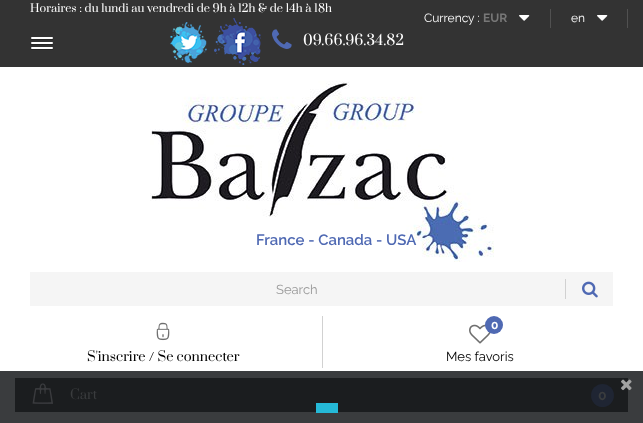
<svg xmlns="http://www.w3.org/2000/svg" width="643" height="423">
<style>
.a{font:11px Prata;fill:#fff}
.b{font:12px Raleway;fill:#fff}
.c{font:bold 12px Raleway;fill:#777}
.d{font:14px Prata;fill:#fff}
.e{font:600 15px Raleway;fill:#4f69b3}
.f{font:13px Raleway;fill:#999}
.g{font:13px Prata;fill:#000}
.h{font:bold 12px Raleway;fill:#fff}
.i{font:13px Raleway;fill:#000}
.j{font:13px Prata;fill:#3a3c3e}
.k{font:bold 14px Raleway;fill:#3a3c3e}
</style>
<rect width="100%" height="100%" fill="#fff"/>
<path fill="#3a3c3e" d="M0 371h643v52H0z"/>
<path fill="#333" d="M0 0h643v67H0z"/>
<path fill="#515151" d="M550 9h1v19H550z"/>
<image href="1.png" x="519" y="15" width="11" height="6"/>
<path fill="#515151" d="M627 9h1v19H627z"/>
<image href="1.png" x="597" y="15" width="11" height="6"/>
<image href="2.png" x="170" y="22" width="37" height="41"/>
<image href="3.png" x="214" y="18" width="47" height="47"/>
<image href="4.png" x="272" y="29" width="20" height="20"/>
<path fill="#262626" d="M31 38.5c-1 2 2 1.5 4.5 1.5h13c2.5 0 5.5 .5 4.5-1.5l-1 .5h-20z"/>
<rect fill="#fff" x="31" y="37" width="22" height="2" rx="1"/>
<path fill="#262626" d="M31 43.5c-1 2 2 1.5 4.5 1.5h13c2.5 0 5.5 .5 4.5-1.5l-1 .5h-20z"/>
<rect fill="#fff" x="31" y="42" width="22" height="2" rx="1"/>
<path fill="#262626" d="M31 48.5c-1 2 2 1.5 4.5 1.5h13c2.5 0 5.5 .5 4.5-1.5l-1 .5h-20z"/>
<rect fill="#fff" x="31" y="47" width="22" height="2" rx="1"/>
<image href="5.png" x="150" y="81" width="344" height="181"/>
<path fill="#f5f5f5" d="M30 272h583v34H30z"/>
<path fill="#d1d1d1" d="M565 279h1v20H565z"/>
<image href="6.png" x="582" y="281" width="16" height="17"/>
<image href="7.png" x="156" y="322" width="14" height="19"/>
<path fill="#d1d1d1" d="M322 316h1v52H322z"/>
<image href="8.png" x="469" y="324" width="22" height="20"/>
<circle fill="#4f69b3" cx="494" cy="325" r="9"/>
<path fill="#1b1d1f" d="M15 378h613v34H15z"/>
<image href="9.png" x="32" y="383" width="21" height="21"/>
<circle fill="#1f2533" cx="602.5" cy="395.5" r="11.5"/>
<image href="10.png" x="621" y="379" width="11" height="12"/>
<path fill="#25b9d7" d="M316 403h22v10H316z"/>
<text class="a" x="30" y="12">Horaires : du lundi au vendredi de 9h à 12h &amp; de 14h à 18h</text>
<text class="b" x="424" y="22">Currency :</text>
<text class="c" x="483" y="22">EUR</text>
<text class="b" x="571" y="22">en</text>
<text class="d" x="303" y="45">09.66.96.34.82</text>
<text class="e" x="256" y="245">France - Canada - USA</text>
<text class="f" x="276" y="294">Search</text>
<text class="g" x="87" y="361">S'inscrire / Se connecter</text>
<text class="h" x="491" y="329">0</text>
<text class="i" x="446" y="361">Mes favoris</text>
<text class="j" x="70" y="399">Cart</text>
<text class="k" x="598" y="400">0</text>
</svg>
